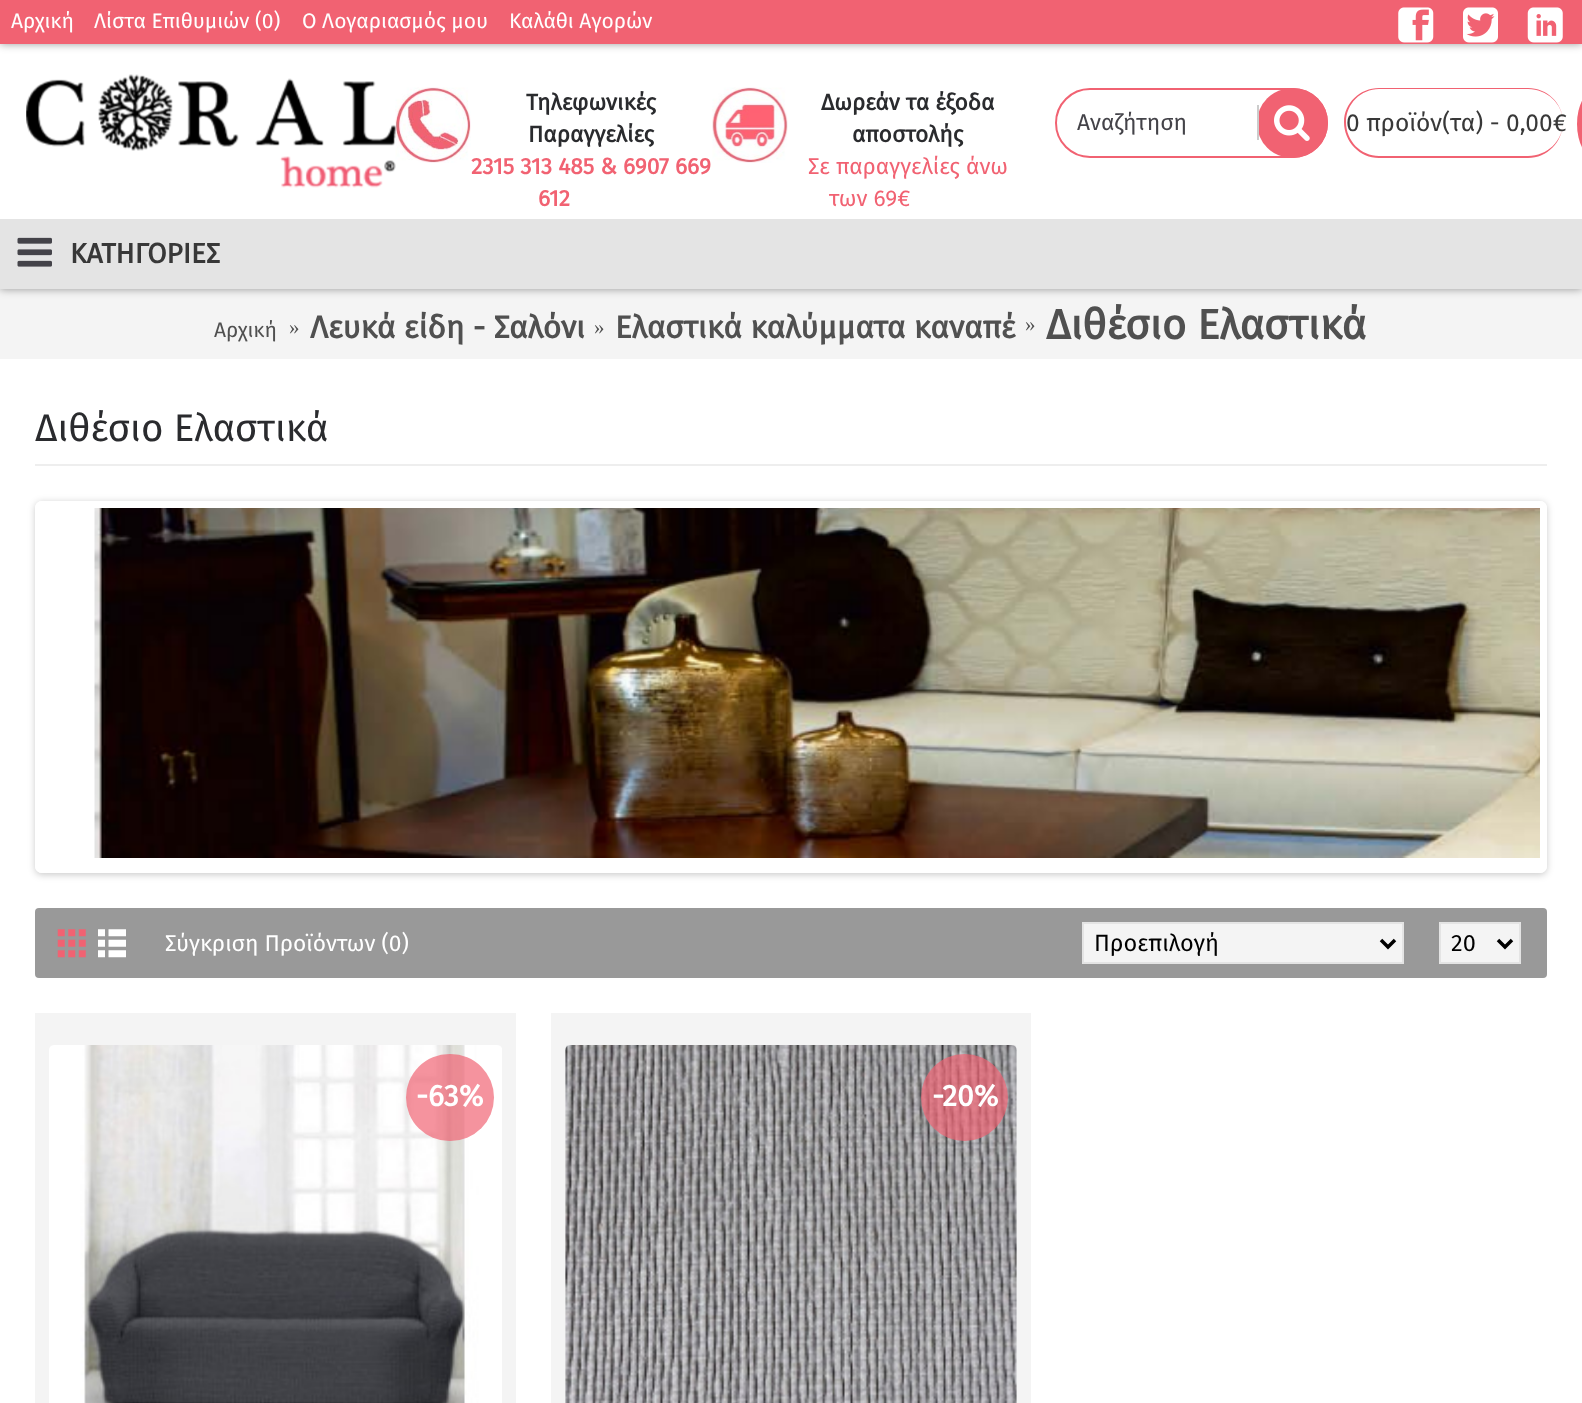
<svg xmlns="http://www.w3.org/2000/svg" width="1582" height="1403">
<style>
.a{font:21px Fira Sans;fill:#fff}
.b{font:bold 22.75px Fira Sans;fill:#2a2b2e}
.c{font:bold 22.75px Fira Sans;fill:#f16272}
.d{font:22.75px Fira Sans;fill:#f16272}
.e{font:22.75px Fira Sans;fill:#444349}
.f{font:24.5px Fira Sans;fill:#383838}
.g{font:bold 28px Fira Sans;fill:#383838}
.h{font:21px Fira Sans;fill:#505050}
.i{font:21px Liberation Serif;fill:#505050}
.j{font:bold 31.5px Fira Sans;fill:#505050}
.k{font:bold 42px Fira Sans;fill:#505050}
.l{font:38.5px Fira Sans;fill:#2a2b2e}
.m{font:22.75px Fira Sans;fill:#fff}
.n{font:23.5px Fira Sans;fill:#000}
.o{font:bold 30px Fira Sans;fill:#fff}
</style>
<defs>
<clipPath id="clip1"><path d="M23 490h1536v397h-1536zm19 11h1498c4 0 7 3 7 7v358c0 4-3 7-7 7h-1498c-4 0-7-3-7-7v-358c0-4 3-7 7-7z" clip-rule="evenodd"/></clipPath>
</defs>
<rect width="100%" height="100%" fill="#fff"/>
<path fill="#f4f4f4" d="M0 289h1582v70H0z"/>
<path fill="#00000066" filter="blur(4.5px)" d="M0 0h1582v289H0z"/>
<path fill="#fff" d="M0 44h1582v175H0z"/>
<path fill="#00000066" filter="blur(4.5px)" d="M0 0h1582v44H0z"/>
<path fill="#f16272" d="M0 0h1582v44H0z"/>
<image href="1.png" x="1398" y="7" width="36" height="36"/>
<image href="2.png" x="1463" y="7" width="35" height="36"/>
<image href="3.png" x="1527" y="7" width="36" height="36"/>
<image href="5.png" x="395" y="87" width="76" height="76"/>
<image href="4.png" x="26" y="74" width="370" height="114"/>
<image href="6.png" x="712" y="87" width="76" height="76"/>
<rect fill="none" stroke="#f16272" stroke-width="2" x="1056" y="89" width="271" height="68" rx="34"/>
<rect fill="#f16272" x="1257" y="88" width="71" height="70" rx="35"/>
<path fill="#ccc" d="M1257 105h2v35H1257z"/>
<image href="7.png" x="1274" y="105" width="36" height="36"/>
<path fill="#f16272" fill-rule="evenodd" d="M1379 88h149c19 0 35 15 35 34c0 20-16 36-35 36h-149c-19 0-35-16-35-36c0-19 16-34 35-34zm0 1h149c19 0 35 15 35 33c0 19-16 34-35 34h-149c-18 0-33-15-33-34c0-18 15-33 33-33z"/>
<rect fill="#f16272" x="1577" y="89" width="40" height="70" rx="35"/>
<path fill="#e4e4e4" d="M0 219h1582v70H0z"/>
<image href="8.png" x="17" y="237" width="35" height="30"/>
<path fill="#eee" d="M35 464h1512v2H35z"/>
<g clip-path="url(#clip1)">
<rect fill="#00000033" filter="blur(3.5px)" x="35" y="502" width="1512" height="373" rx="7"/>
</g>
<rect fill="none" stroke="#fff" stroke-width="7" x="38.5" y="504.5" width="1505" height="365" rx="3.5"/>
<image href="9.png" x="94" y="508" width="1446" height="350"/>
<rect fill="#999" x="35" y="908" width="1512" height="70" rx="4"/>
<image href="10.png" x="57" y="929" width="29" height="29"/>
<image href="11.png" x="98" y="929" width="28" height="29"/>
<path fill="#f4f4f4" stroke="#e4e4e4" stroke-width="2" d="M1083 923h320v40H1083z"/>
<path fill="none" stroke="#000" stroke-width="3.5" d="M1381 940l7 7l7-7"/>
<path fill="#f4f4f4" stroke="#e4e4e4" stroke-width="2" d="M1440 923h80v40H1440z"/>
<path fill="none" stroke="#000" stroke-width="3.5" d="M1498 940l7 7l7-7"/>
<path fill="#f4f4f4" d="M35 1013h481v390H35z"/>
<image href="12.png" x="49" y="1045" width="453" height="358"/>
<rect fill="#f16272b0" x="406" y="1054" width="88" height="87" rx="43.5"/>
<path fill="#f4f4f4" d="M551 1013h480v390H551z"/>
<image href="13.png" x="565" y="1045" width="452" height="358"/>
<circle fill="#f16272b0" cx="964.5" cy="1097.5" r="43.5"/>
<text class="a" x="11" y="28">Αρχική</text>
<text class="a" x="94" y="28">Λίστα Επιθυμιών (0)</text>
<text class="a" x="302" y="28">O Λογαριασμός μου</text>
<text class="a" x="509" y="28">Καλάθι Αγορών</text>
<text class="b" x="526" y="110">Τηλεφωνικές</text>
<text class="b" x="528" y="142">Παραγγελίες</text>
<text class="c" x="471" y="174">2315 313 485 &amp; 6907 669</text>
<text class="c" x="538" y="206">612</text>
<text class="b" x="821" y="110">Δωρεάν τα έξοδα</text>
<text class="b" x="852" y="142">αποστολής</text>
<text class="d" x="808" y="174">Σε παραγγελίες άνω</text>
<text class="d" x="829" y="206">των 69€</text>
<text class="e" x="1077" y="130">Αναζήτηση</text>
<text class="f" x="1346" y="131">0 προϊόν(τα) - 0,00€</text>
<text class="g" x="70" y="263">ΚΑΤΗΓΟΡΙΕΣ</text>
<text class="h" x="214" y="337">Αρχική</text>
<text class="i" x="289" y="334">»</text>
<text class="j" x="310" y="338">Λευκά είδη - Σαλόνι</text>
<text class="i" x="594" y="334">»</text>
<text class="j" x="615" y="338">Ελαστικά καλύμματα καναπέ</text>
<text class="i" x="1025" y="331">»</text>
<text class="k" x="1046" y="339">Διθέσιο Ελαστικά</text>
<text class="l" x="35" y="441">Διθέσιο Ελαστικά</text>
<text class="m" x="165" y="951">Σύγκριση Προϊόντων (0)</text>
<text class="n" x="1094" y="951">Προεπιλογή</text>
<text class="n" x="1451" y="951">20</text>
<text class="o" x="416" y="1106">-63%</text>
<text class="o" x="932" y="1106">-20%</text>
</svg>
